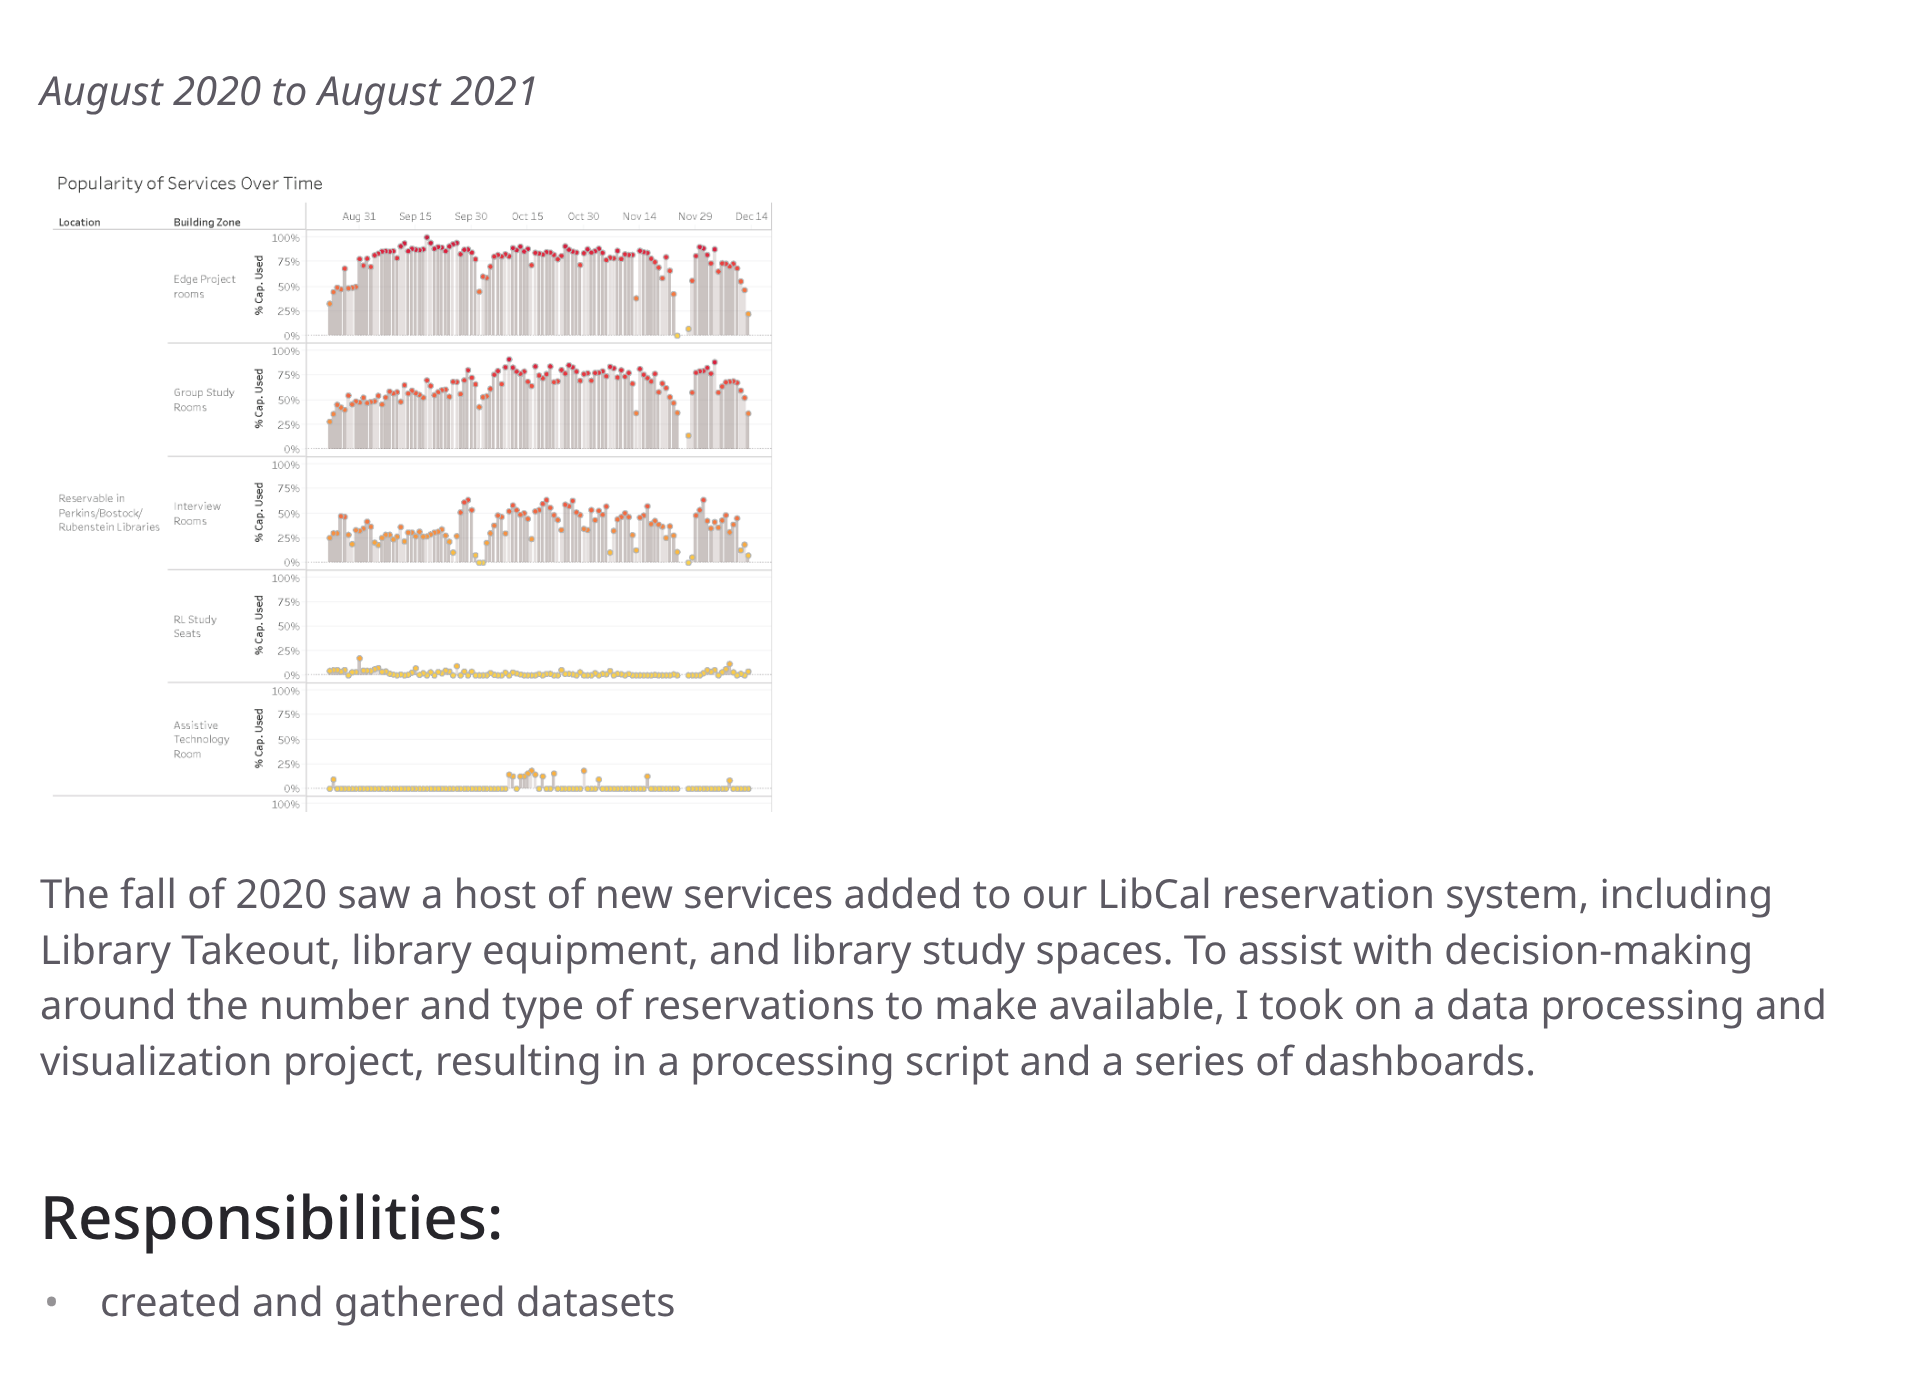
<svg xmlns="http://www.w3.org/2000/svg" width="1926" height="1373">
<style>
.a{font:italic 40px Noto Sans;fill:#5c5962}
.b{font:40px Noto Sans;fill:#5c5962}
.c{font:500 60px Noto Sans;fill:#27262b}
.d{font:40px Noto Sans;fill:#959396}
</style>
<rect width="100%" height="100%" fill="#fff"/>
<image href="1.png" x="52" y="176" width="721" height="636"/>
<text class="a" x="40" y="105">August 2020 to August 2021</text>
<text class="b" x="40" y="908">The fall of 2020 saw a host of new services added to our LibCal reservation system, including</text>
<text class="b" x="40" y="964">Library Takeout, library equipment, and library study spaces. To assist with decision-making</text>
<text class="b" x="40" y="1019">around the number and type of reservations to make available, I took on a data processing and</text>
<text class="b" x="40" y="1075">visualization project, resulting in a processing script and a series of dashboards.</text>
<text class="c" x="40" y="1239">Responsibilities:</text>
<text class="d" x="44" y="1316">•</text>
<text class="b" x="100" y="1316">created and gathered datasets</text>
</svg>
